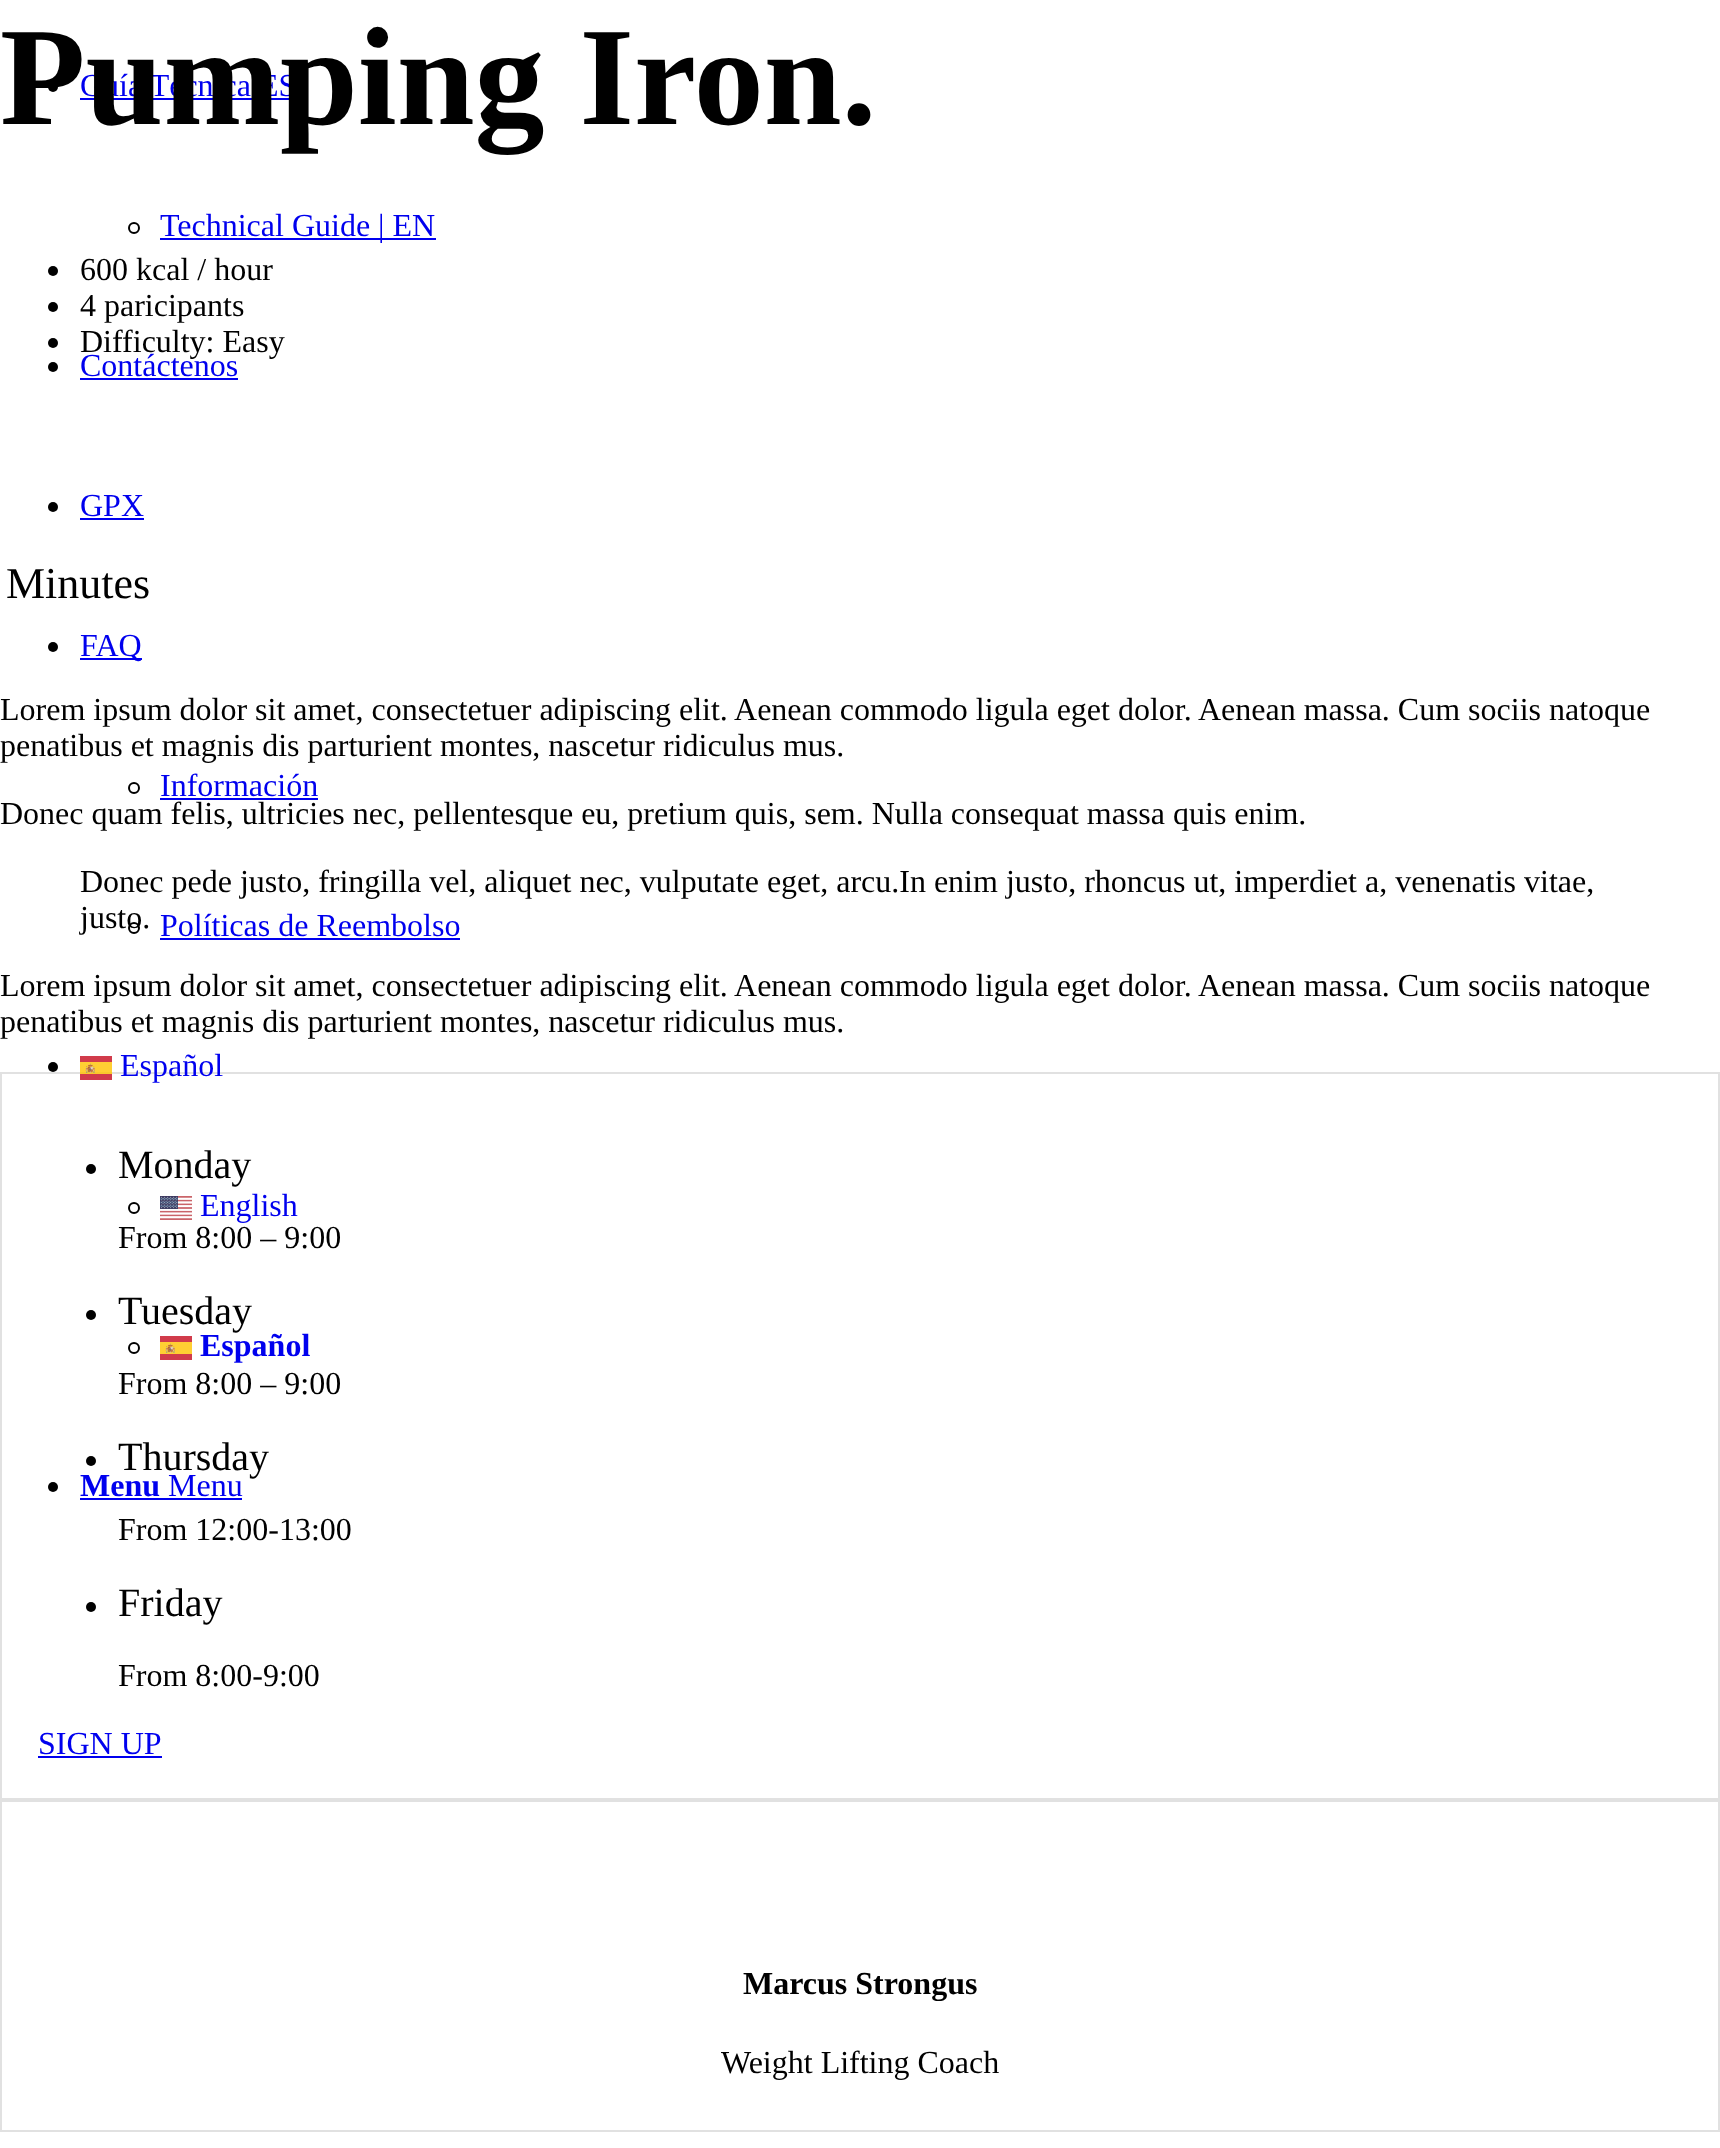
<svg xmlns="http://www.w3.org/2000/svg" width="1720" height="2148">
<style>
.a{font:32px Liberation Serif;fill:#000}
.b{font:44px Liberation Serif;fill:#000}
.c{font:40px Liberation Serif;fill:#000}
.d{font:32px Liberation Serif;fill:#00e}
.e{font:bold 32px Liberation Serif;fill:#000}
.f{font:bold 140px Liberation Serif;fill:#000}
.g{font:bold 32px Liberation Serif;fill:#00e}
</style>
<rect width="100%" height="100%" fill="#fff"/>
<circle fill="#000" cx="53" cy="271" r="5"/>
<circle fill="#000" cx="53" cy="307" r="5"/>
<circle fill="#000" cx="53" cy="343" r="5"/>
<path fill="none" stroke="#e1e1e1" stroke-width="2" d="M1 1073h1718v726H1z"/>
<circle fill="#000" cx="91" cy="1169" r="5"/>
<circle fill="#000" cx="91" cy="1315" r="5"/>
<circle fill="#000" cx="91" cy="1461" r="5"/>
<circle fill="#000" cx="91" cy="1607" r="5"/>
<path fill="#00e" d="M38 1756h124v2H38z"/>
<path fill="none" stroke="#e1e1e1" stroke-width="2" d="M1 1801h1718v330H1z"/>
<circle fill="#000" cx="53" cy="87" r="5"/>
<path fill="#00e" d="M80 98h216v2H80z"/>
<circle fill="none" stroke="#000" stroke-width="2" cx="134" cy="228" r="5"/>
<path fill="#00e" d="M160 238h276v2H160z"/>
<circle fill="#000" cx="53" cy="367" r="5"/>
<path fill="#00e" d="M80 378h158v2H80z"/>
<circle fill="#000" cx="53" cy="507" r="5"/>
<path fill="#00e" d="M80 518h64v2H80z"/>
<circle fill="#000" cx="53" cy="647" r="5"/>
<path fill="#00e" d="M80 658h62v2H80z"/>
<circle fill="none" stroke="#000" stroke-width="2" cx="134" cy="788" r="5"/>
<path fill="#00e" d="M160 798h158v2H160z"/>
<circle fill="none" stroke="#000" stroke-width="2" cx="134" cy="928" r="5"/>
<path fill="#00e" d="M160 938h300v2H160z"/>
<circle fill="#000" cx="53" cy="1067" r="5"/>
<image href="1.png" x="80" y="1056" width="32" height="24"/>
<circle fill="none" stroke="#000" stroke-width="2" cx="134" cy="1208" r="5"/>
<image href="2.png" x="160" y="1196" width="32" height="24"/>
<circle fill="none" stroke="#000" stroke-width="2" cx="134" cy="1348" r="5"/>
<image href="3.png" x="160" y="1336" width="32" height="24"/>
<circle fill="#000" cx="53" cy="1487" r="5"/>
<path fill="#00e" d="M80 1498h162v2H80z"/>
<text class="a" x="80" y="280">600 kcal / hour</text>
<text class="a" x="80" y="316">4 paricipants</text>
<text class="a" x="80" y="352">Difficulty: Easy</text>
<text class="b" x="6" y="598">Minutes</text>
<text class="a" x="0" y="720">Lorem ipsum dolor sit amet, consectetuer adipiscing elit. Aenean commodo ligula eget dolor. Aenean massa. Cum sociis natoque</text>
<text class="a" x="0" y="756">penatibus et magnis dis parturient montes, nascetur ridiculus mus.</text>
<text class="a" x="0" y="824">Donec quam felis, ultricies nec, pellentesque eu, pretium quis, sem. Nulla consequat massa quis enim.</text>
<text class="a" x="80" y="892">Donec pede justo, fringilla vel, aliquet nec, vulputate eget, arcu.In enim justo, rhoncus ut, imperdiet a, venenatis vitae,</text>
<text class="a" x="80" y="928">justo.</text>
<text class="a" x="0" y="996">Lorem ipsum dolor sit amet, consectetuer adipiscing elit. Aenean commodo ligula eget dolor. Aenean massa. Cum sociis natoque</text>
<text class="a" x="0" y="1032">penatibus et magnis dis parturient montes, nascetur ridiculus mus.</text>
<text class="c" x="118" y="1178">Monday</text>
<text class="a" x="118" y="1248">From 8:00 – 9:00</text>
<text class="c" x="118" y="1324">Tuesday</text>
<text class="a" x="118" y="1394">From 8:00 – 9:00</text>
<text class="c" x="118" y="1470">Thursday</text>
<text class="a" x="118" y="1540">From 12:00-13:00</text>
<text class="c" x="118" y="1616">Friday</text>
<text class="a" x="118" y="1686">From 8:00-9:00</text>
<text class="d" x="38" y="1754">SIGN UP</text>
<text class="e" x="743" y="1994">Marcus Strongus</text>
<text class="a" x="721" y="2073">Weight Lifting Coach</text>
<text class="d" x="80" y="96">Guía Técnica ES</text>
<text class="f" x="0" y="124">Pumping Iron.</text>
<text class="d" x="160" y="236">Technical Guide | EN</text>
<text class="d" x="80" y="376">Contáctenos</text>
<text class="d" x="80" y="516">GPX</text>
<text class="d" x="80" y="656">FAQ</text>
<text class="d" x="160" y="796">Información</text>
<text class="d" x="160" y="936">Políticas de Reembolso</text>
<text class="d" x="120" y="1076">Español</text>
<text class="d" x="200" y="1216">English</text>
<text class="g" x="200" y="1356">Español</text>
<text class="g" x="80" y="1496">Menu</text>
<text class="d" x="168" y="1496">Menu</text>
</svg>
